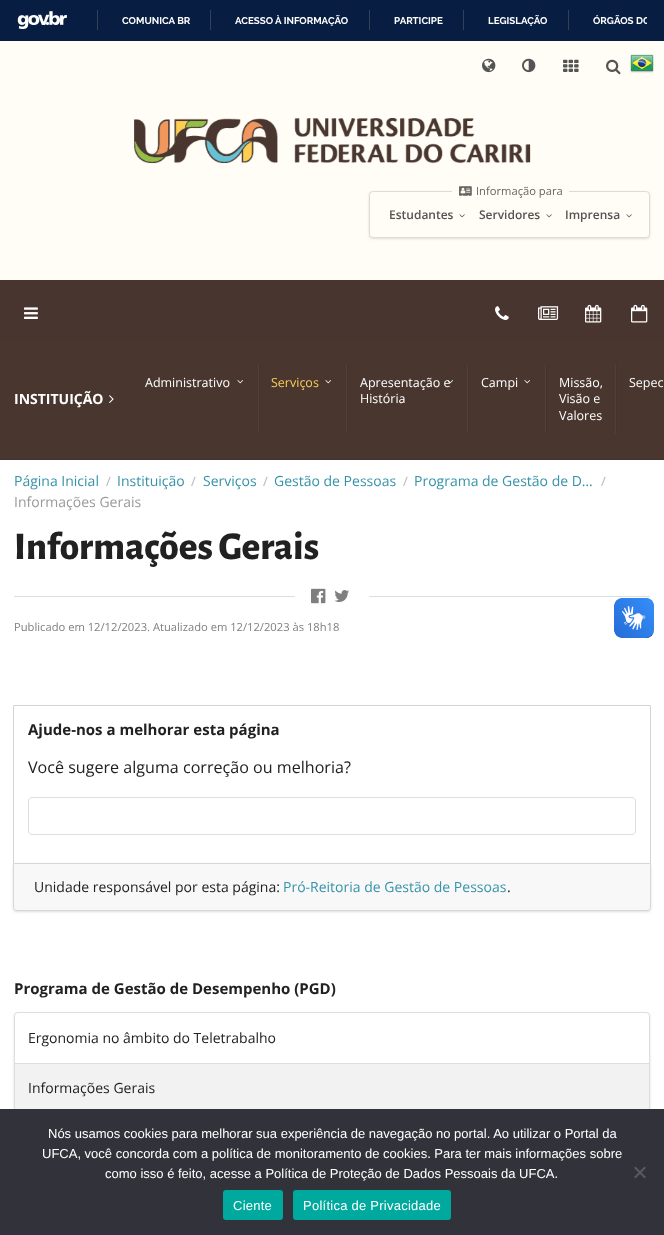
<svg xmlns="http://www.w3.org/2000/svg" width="664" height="1235">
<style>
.a{font:bold 9.75px Raleway;fill:#fff}
.b{font:11.2px Open Sans;fill:#666}
.c{font:600 12px Open Sans;fill:#545454}
.d{font:12.5px Open Sans;fill:#fff}
.e{font:12.5px Open Sans;fill:#facb59}
.f{font:bold 14px Open Sans;fill:#fff}
.g{font:14px Open Sans;fill:#3693a8}
.h{font:13px Open Sans;fill:#b8b8b8}
.i{font:14px Open Sans;fill:#999}
.j{font:800 39.25px Alegreya Sans;fill:#212121}
.k{font:11.2px Open Sans;fill:#808080}
.l{font:bold 15px Open Sans;fill:#212121}
.m{font:16.1px Open Sans;fill:#212121}
.n{font:14px Open Sans;fill:#212121}
.o{font:13px Liberation Sans;fill:#fff}
.p{font:13px Liberation Sans;letter-spacing:0.25px;fill:#fff}
</style>
<defs>
<clipPath id="clip1"><path d="M77 9h570v22H77z"/></clipPath>
</defs>
<rect width="100%" height="100%" fill="#071d41"/>
<image href="1.png" x="17" y="11" width="50" height="18"/>
<path fill="#32425b" d="M97 10h1v20H97z"/>
<path fill="#32425b" d="M210 10h1v20H210z"/>
<path fill="#32425b" d="M369 10h1v20H369z"/>
<path fill="#32425b" d="M463 10h1v20H463z"/>
<path fill="#32425b" d="M568 10h1v20H568z"/>
<path fill="#fff" d="M0 460h664v649H0z"/>
<path fill="#fffdf6" d="M0 41h664v239H0z"/>
<image href="2.png" x="482" y="58" width="14" height="15"/>
<image href="3.png" x="522" y="58" width="14" height="15"/>
<image href="4.png" x="563" y="59" width="16" height="13"/>
<image href="5.png" x="606" y="59" width="15" height="16"/>
<image href="6.png" x="630" y="54" width="24" height="19"/>
<image href="7.png" x="134" y="118" width="397" height="46"/>
<rect fill="#22242626" filter="blur(1px)" x="369" y="192" width="281" height="47" rx="4"/>
<rect fill="#fffdf6" x="369" y="191" width="281" height="47" rx="4"/>
<rect fill="none" stroke="#22242626" x="369.5" y="191.5" width="280" height="46" rx="3.5"/>
<path fill="#fffdf6" d="M452 191h117v1H452z"/>
<image href="8.png" x="459" y="186" width="13" height="10"/>
<image href="9.png" x="459" y="214" width="6" height="4"/>
<image href="9.png" x="546" y="214" width="6" height="4"/>
<image href="9.png" x="626" y="214" width="6" height="4"/>
<path fill="#48352f" d="M0 280h664v60H0z"/>
<image href="10.png" x="24" y="307" width="14" height="12"/>
<image href="11.png" x="495" y="306" width="14" height="14"/>
<image href="12.png" x="538" y="306" width="21" height="14"/>
<image href="13.png" x="585" y="304" width="17" height="19"/>
<image href="14.png" x="631" y="304" width="17" height="19"/>
<path fill="#48362f" d="M0 340h664v119H0z"/>
<path fill="#42332e" d="M0 459h664v1H0z"/>
<path fill="#514039" d="M258 365h1v69H258z"/>
<image href="15.png" x="237" y="380" width="6" height="4"/>
<path fill="#514039" d="M346 365h1v69H346z"/>
<path fill="#44332d" d="M259 365h1v69H259z"/>
<image href="15.png" x="325" y="380" width="6" height="4"/>
<path fill="#514039" d="M467 365h1v69H467z"/>
<path fill="#44332d" d="M347 365h1v69H347z"/>
<path fill="#514039" d="M545 365h1v69H545z"/>
<path fill="#44332d" d="M468 365h1v69H468z"/>
<image href="15.png" x="524" y="380" width="6" height="4"/>
<path fill="#514039" d="M615 365h1v69H615z"/>
<path fill="#44332d" d="M546 365h1v69H546z"/>
<path fill="#44332d" d="M616 365h1v69H616z"/>
<image href="17.png" x="109" y="395" width="5" height="8"/>
<path fill="#dddede" d="M14 596h281v1H14z"/>
<image href="18.png" x="311" y="588" width="15" height="16"/>
<image href="19.png" x="334" y="590" width="15" height="12"/>
<path fill="#dddede" d="M369 596h281v1H369z"/>
<path fill="none" stroke="#d4d4d5" d="M13.5 705.5h637v158H13.5z"/>
<rect fill="none" stroke="#dedede" x="28.5" y="797.5" width="607" height="37" rx="3.5"/>
<rect fill="#22242626" filter="blur(1px)" x="13" y="864" width="638" height="48" rx="4"/>
<path fill="#f8f8f9" stroke="#d8d8d9" d="M13.5 863.5h637v43.5c0 2-1.5 3.5-3.5 3.5h-630c-2 0-3.5-1.5-3.5-3.5z"/>
<rect fill="#22242626" filter="blur(1px)" x="14" y="1013" width="636" height="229" rx="4"/>
<rect fill="#fff" stroke="#dedede" x="14.5" y="1012.5" width="635" height="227" rx="3.5"/>
<path fill="#f2f2f2" d="M15 1064h634v45H15z"/>
<path fill="#ddddde" d="M15 1063h634v1H15z"/>
<image href="20.png" x="614" y="598" width="40" height="40"/>
<image href="21.png" x="614" y="598" width="40" height="40"/>
<path fill="#32323a" d="M0 1109h664v126H0z"/>
<path fill="#59595d" d="M644.5 1166.5l1.5 1.5l-10.5 10.5l-1.5-1.5z"/>
<path fill="#59595d" d="M634 1168l1.5-1.5l10.5 10.5l-1.5 1.5z"/>
<rect fill="#00a99d" x="223" y="1190" width="60" height="30" rx="3"/>
<rect fill="#00a99d" x="293" y="1190" width="158" height="30" rx="3"/>
<text class="a" x="122" y="24">COMUNICA BR</text>
<text class="a" x="235" y="24">ACESSO À INFORMAÇÃO</text>
<text class="a" x="394" y="24">PARTICIPE</text>
<text class="a" x="488" y="24">LEGISLAÇÃO</text>
<g clip-path="url(#clip1)">
<text class="a" x="593" y="24">ÓRGÃOS DO</text>
</g>
<text class="b" x="476" y="195">Informação para</text>
<text class="c" x="389" y="219">Estudantes</text>
<text class="c" x="479" y="219">Servidores</text>
<text class="c" x="565" y="219">Imprensa</text>
<text class="d" x="145" y="387">Administrativo</text>
<text class="e" x="271" y="387">Serviços</text>
<text class="d" x="360" y="387">Apresentação e</text>
<image href="16.png" x="447" y="380" width="6" height="4"/>
<text class="d" x="360" y="403">História</text>
<text class="d" x="481" y="387">Campi</text>
<text class="d" x="559" y="387">Missão,</text>
<text class="d" x="559" y="403">Visão e</text>
<text class="d" x="559" y="420">Valores</text>
<text class="d" x="629" y="387">Sepec</text>
<text class="f" x="14" y="404">INSTITUIÇÃO</text>
<text class="g" x="14" y="486">Página Inicial</text>
<text class="h" x="106" y="486">/</text>
<text class="g" x="117" y="486">Instituição</text>
<text class="h" x="191" y="486">/</text>
<text class="g" x="203" y="486">Serviços</text>
<text class="h" x="263" y="486">/</text>
<text class="g" x="274" y="486">Gestão de Pessoas</text>
<text class="h" x="403" y="486">/</text>
<text class="g" x="414" y="486">Programa de Gestão de D…</text>
<text class="h" x="601" y="486">/</text>
<text class="i" x="14" y="507">Informações Gerais</text>
<text class="j" x="14" y="559">Informações Gerais</text>
<text class="k" x="14" y="631">Publicado em 12/12/2023. Atualizado em 12/12/2023 às 18h18</text>
<text class="l" x="28" y="735">Ajude-nos a melhorar esta página</text>
<text class="m" x="28" y="773">Você sugere alguma correção ou melhoria?</text>
<text class="n" x="34" y="892">Unidade responsável por esta página:</text>
<text class="g" x="283" y="892">Pró-Reitoria de Gestão de Pessoas</text>
<text class="n" x="507" y="892">.</text>
<text class="l" x="14" y="994">Programa de Gestão de Desempenho (PGD)</text>
<text class="n" x="28" y="1043">Ergonomia no âmbito do Teletrabalho</text>
<text class="n" x="28" y="1093">Informações Gerais</text>
<text class="o" x="48" y="1138">Nós usamos cookies para melhorar sua experiência de navegação no portal. Ao utilizar o Portal da</text>
<text class="o" x="42" y="1158">UFCA, você concorda com a política de monitoramento de cookies. Para ter mais informações sobre</text>
<text class="o" x="105" y="1178">como isso é feito, acesse a Política de Proteção de Dados Pessoais da UFCA.</text>
<text class="p" x="233" y="1210">Ciente</text>
<text class="p" x="303" y="1210">Política de Privacidade</text>
</svg>
